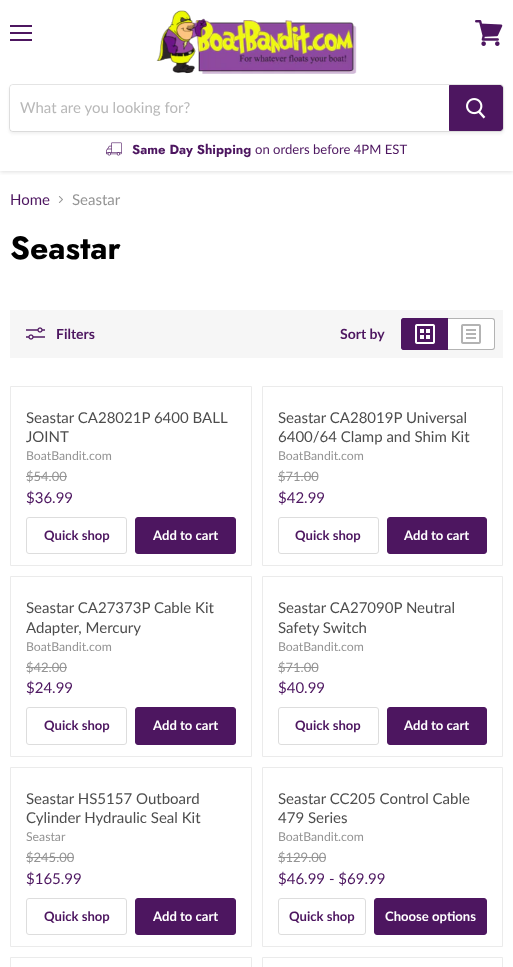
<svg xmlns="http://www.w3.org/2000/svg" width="513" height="967">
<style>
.a{font:15px Lato;fill:#b8b8b8}
.b{font:bold 13.1px Jost;fill:#4d1660}
.c{font:13.1px Lato;fill:#4d1660}
.d{font:15px Lato;fill:#4d1660}
.e{font:15px Lato;fill:#949494}
.f{font:bold 32px Jost;fill:#000}
.g{font:bold 14px Lato;fill:#4d1660}
.h{font:15px Lato;fill:#4d4d4d}
.i{font:12.25px Lato;fill:#949494}
.j{font:13px Lato;fill:#949494}
.k{font:bold 13.1px Lato;fill:#4d1660}
.l{font:bold 13.1px Lato;fill:#fff}
</style>
<defs>
<clipPath id="clip1"><path d="M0 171h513v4H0z"/></clipPath>
</defs>
<rect width="100%" height="100%" fill="#fff"/>
<g clip-path="url(#clip1)">
<path fill="#80808040" filter="blur(2px)" d="M0 1h513v171H0z"/>
</g>
<path fill="#4d1660" d="M10 25h22v2H10z"/>
<path fill="#4d1660" d="M10 32h22v2H10z"/>
<path fill="#4d1660" d="M10 39h22v2H10z"/>
<image href="1.png" x="475" y="20" width="28" height="26"/>
<image href="2.png" x="156" y="10" width="201" height="64"/>
<rect fill="#8080801c" filter="blur(1.5px)" x="9" y="86" width="495" height="48" rx="4"/>
<rect fill="none" stroke="#80808033" x="9.5" y="84.5" width="494" height="47" rx="3.5"/>
<path fill="#fff" d="M13 85h436v46h-436c-1.5 0-3-1.5-3-3v-40c0-1.5 1.5-3 3-3z"/>
<path fill="#4d1660" stroke="#4d1660" d="M449.5 85.5h50.5c1.5 0 2.5 1 2.5 2.5v40c0 1.5-1 2.5-2.5 2.5h-50.5z"/>
<image href="3.png" x="466" y="98" width="20" height="21"/>
<image href="4.png" x="106" y="142" width="16" height="14"/>
<image href="5.png" x="58" y="196" width="5" height="7"/>
<path fill="#f6f6f6" d="M10 310h493v48H10z"/>
<image href="6.png" x="26" y="327" width="19" height="13"/>
<path fill="#4d1660" d="M404 318h44v32h-44c-1.5 0-3-1.5-3-3v-26c0-1.5 1.5-3 3-3z"/>
<path fill="#4d1660" fill-rule="evenodd" d="M404 318h44v32h-44c-2 0-3-1-3-3v-26c0-2 1-3 3-3zm0 1h44v30h-44c-1 0-2-1-2-2v-26c0-1 1-2 2-2z"/>
<image href="7.png" x="415" y="324" width="20" height="20"/>
<path fill="#fff" d="M448 318h44c1.5 0 3 1.5 3 3v26c0 1.5-1.5 3-3 3h-44z"/>
<path fill="#b3b3b3" fill-rule="evenodd" d="M448 318h44c2 0 3 1 3 3v26c0 2-1 3-3 3h-44zm0 1h44c1 0 2 1 2 2v26c0 1-1 2-2 2h-44z"/>
<image href="8.png" x="461" y="324" width="20" height="20"/>
<path fill="none" stroke="#ebebeb" d="M10.5 386.5h241v179H10.5z"/>
<path fill="#949494" d="M26 476h41v1H26z"/>
<rect fill="none" stroke="#ddd" x="26.5" y="517.5" width="100" height="36" rx="2.5"/>
<rect fill="#4d1660" stroke="#4d1660" x="135.5" y="517.5" width="100" height="36" rx="2.5"/>
<path fill="none" stroke="#ebebeb" d="M262.5 386.5h240v179H262.5z"/>
<path fill="#949494" d="M278 476h40v1H278z"/>
<rect fill="none" stroke="#ddd" x="278.5" y="517.5" width="100" height="36" rx="2.5"/>
<rect fill="#4d1660" stroke="#4d1660" x="387.5" y="517.5" width="99" height="36" rx="2.5"/>
<path fill="none" stroke="#ebebeb" d="M10.5 576.5h241v180H10.5z"/>
<path fill="#949494" d="M26 667h41v1H26z"/>
<rect fill="none" stroke="#ddd" x="26.5" y="707.5" width="100" height="37" rx="2.5"/>
<rect fill="#4d1660" stroke="#4d1660" x="135.5" y="707.5" width="100" height="37" rx="2.5"/>
<path fill="none" stroke="#ebebeb" d="M262.5 576.5h240v180H262.5z"/>
<path fill="#949494" d="M278 667h40v1H278z"/>
<rect fill="none" stroke="#ddd" x="278.5" y="707.5" width="100" height="37" rx="2.5"/>
<rect fill="#4d1660" stroke="#4d1660" x="387.5" y="707.5" width="99" height="37" rx="2.5"/>
<path fill="none" stroke="#ebebeb" d="M10.5 767.5h241v179H10.5z"/>
<path fill="#949494" d="M26 857h48v1H26z"/>
<rect fill="none" stroke="#ddd" x="26.5" y="898.5" width="100" height="36" rx="2.5"/>
<rect fill="#4d1660" stroke="#4d1660" x="135.5" y="898.5" width="100" height="36" rx="2.5"/>
<path fill="none" stroke="#ebebeb" d="M262.5 767.5h240v179H262.5z"/>
<path fill="#949494" d="M278 857h48v1H278z"/>
<rect fill="none" stroke="#ddd" x="278.5" y="898.5" width="87" height="36" rx="2.5"/>
<rect fill="#4d1660" stroke="#4d1660" x="374.5" y="898.5" width="112" height="36" rx="2.5"/>
<path fill="none" stroke="#ebebeb" d="M10.5 957.5h241v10H10.5z"/>
<path fill="none" stroke="#ebebeb" d="M262.5 957.5h240v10H262.5z"/>
<text class="a" x="20" y="113">What are you looking for?</text>
<text class="b" x="132" y="154">Same Day Shipping</text>
<text class="c" x="255" y="154">on orders before 4PM EST</text>
<text class="d" x="10" y="205">Home</text>
<text class="e" x="72" y="205">Seastar</text>
<text class="f" x="10" y="259">Seastar</text>
<text class="g" x="56" y="339">Filters</text>
<text class="g" x="340" y="339">Sort by</text>
<text class="h" x="26" y="423">Seastar CA28021P 6400 BALL</text>
<text class="h" x="26" y="442">JOINT</text>
<text class="i" x="26" y="460">BoatBandit.com</text>
<text class="j" x="26" y="481">$54.00</text>
<text class="d" x="26" y="503">$36.99</text>
<text class="k" x="44" y="540">Quick shop</text>
<text class="l" x="153" y="540">Add to cart</text>
<text class="h" x="278" y="423">Seastar CA28019P Universal</text>
<text class="h" x="278" y="442">6400/64 Clamp and Shim Kit</text>
<text class="i" x="278" y="460">BoatBandit.com</text>
<text class="j" x="278" y="481">$71.00</text>
<text class="d" x="278" y="503">$42.99</text>
<text class="k" x="295" y="540">Quick shop</text>
<text class="l" x="404" y="540">Add to cart</text>
<text class="h" x="26" y="613">Seastar CA27373P Cable Kit</text>
<text class="h" x="26" y="633">Adapter, Mercury</text>
<text class="i" x="26" y="651">BoatBandit.com</text>
<text class="j" x="26" y="672">$42.00</text>
<text class="d" x="26" y="693">$24.99</text>
<text class="k" x="44" y="730">Quick shop</text>
<text class="l" x="153" y="730">Add to cart</text>
<text class="h" x="278" y="613">Seastar CA27090P Neutral</text>
<text class="h" x="278" y="633">Safety Switch</text>
<text class="i" x="278" y="651">BoatBandit.com</text>
<text class="j" x="278" y="672">$71.00</text>
<text class="d" x="278" y="693">$40.99</text>
<text class="k" x="295" y="730">Quick shop</text>
<text class="l" x="404" y="730">Add to cart</text>
<text class="h" x="26" y="804">Seastar HS5157 Outboard</text>
<text class="h" x="26" y="823">Cylinder Hydraulic Seal Kit</text>
<text class="i" x="26" y="841">Seastar</text>
<text class="j" x="26" y="862">$245.00</text>
<text class="d" x="26" y="884">$165.99</text>
<text class="k" x="44" y="921">Quick shop</text>
<text class="l" x="153" y="921">Add to cart</text>
<text class="h" x="278" y="804">Seastar CC205 Control Cable</text>
<text class="h" x="278" y="823">479 Series</text>
<text class="i" x="278" y="841">BoatBandit.com</text>
<text class="j" x="278" y="862">$129.00</text>
<text class="d" x="278" y="884">$46.99 - $69.99</text>
<text class="k" x="289" y="921">Quick shop</text>
<text class="l" x="385" y="921">Choose options</text>
</svg>
